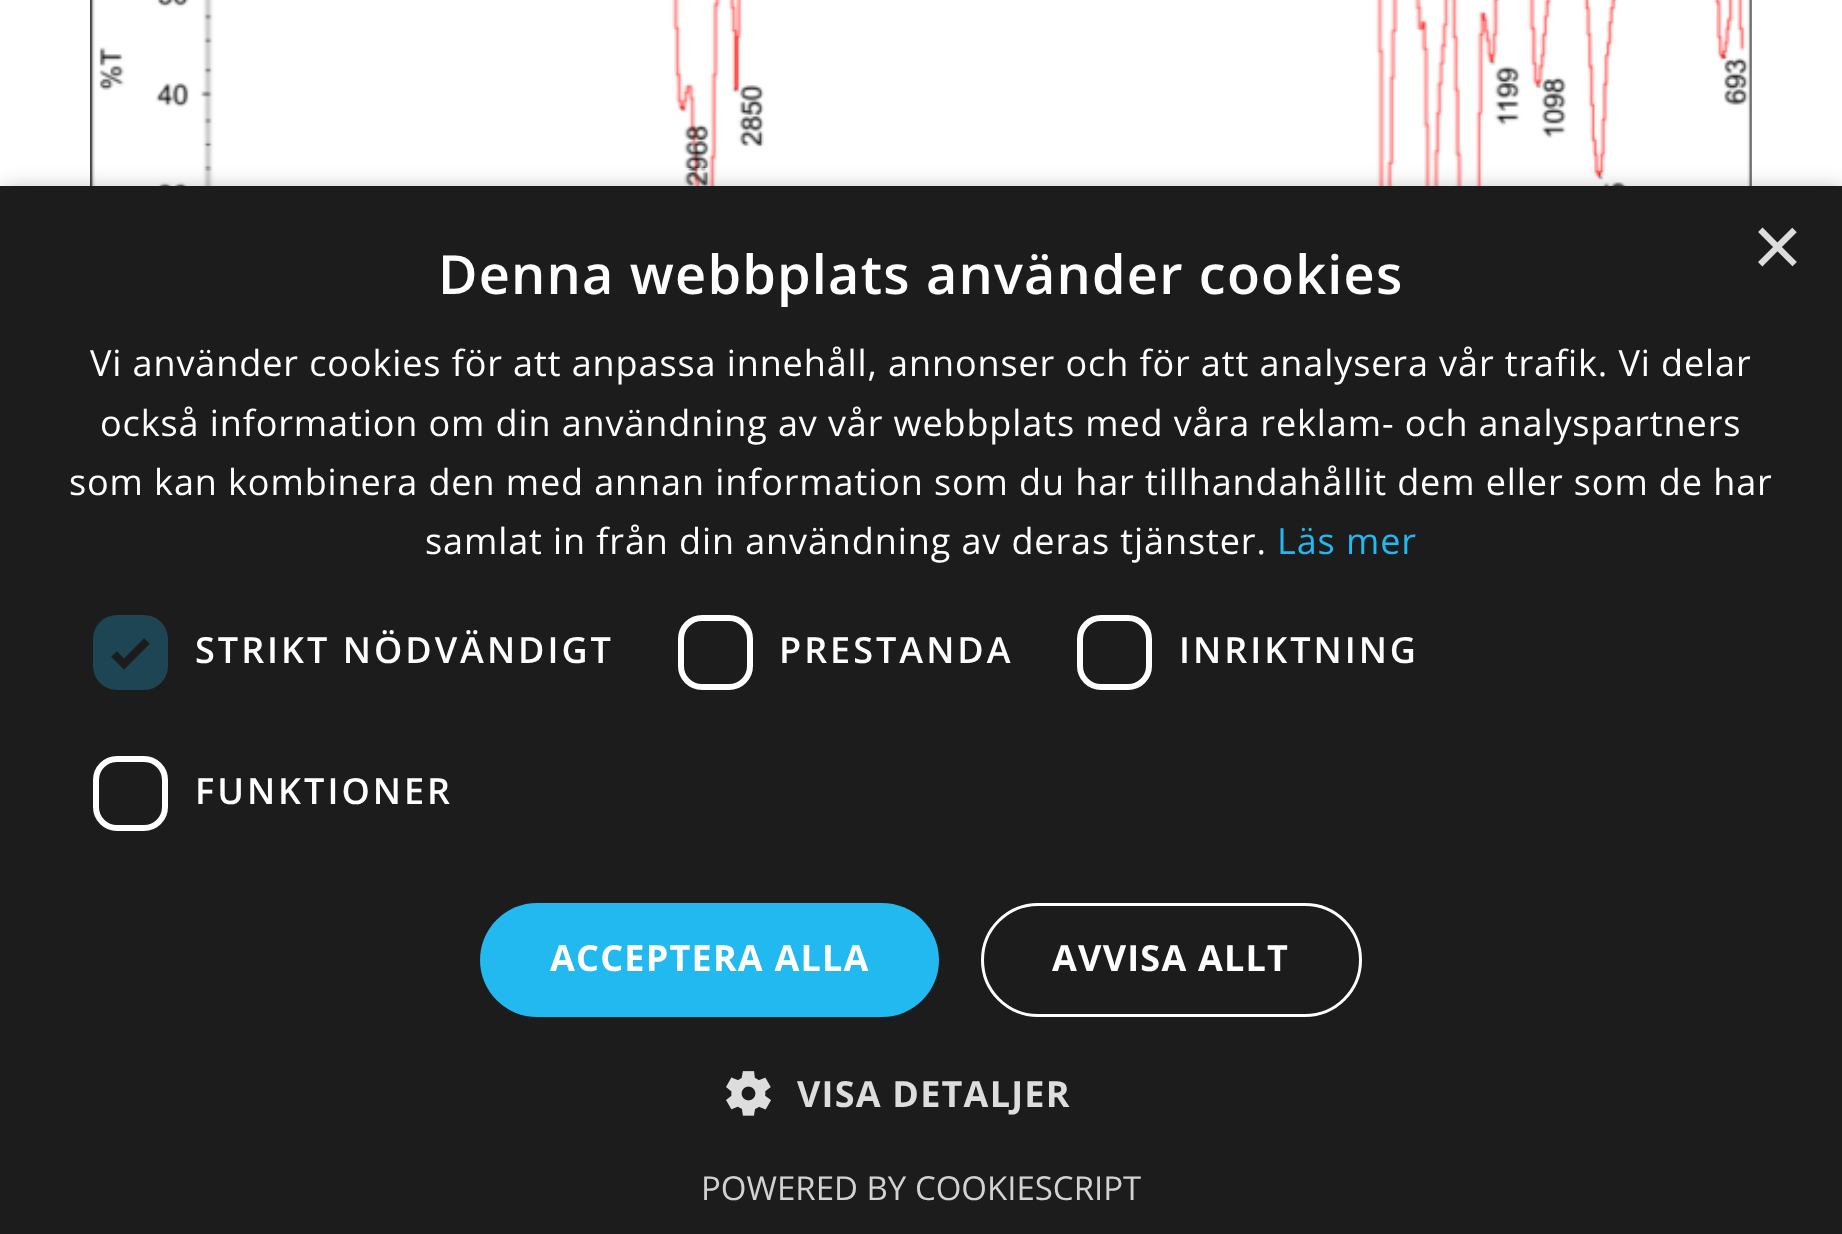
<svg xmlns="http://www.w3.org/2000/svg" width="1842" height="1234">
<style>
.a{font:87px Liberation Sans;fill:#ddd}
.b{font:600 54px Open Sans;letter-spacing:1.2px;fill:#fff}
.c{font:36px Open Sans;letter-spacing:0.9px;fill:#fff}
.d{font:36px Open Sans;letter-spacing:0.9px;fill:#22b8f0}
.e{font:600 36px Open Sans;letter-spacing:3px;fill:#fff}
.f{font:bold 36px Open Sans;letter-spacing:1.2px;fill:#fff}
.g{font:bold 36px Open Sans;letter-spacing:1.2px;fill:#ddd}
.h{font:33px Open Sans;fill:#d2d2d2}
</style>
<rect width="100%" height="100%" fill="#fff"/>
<image href="1.png" x="90" y="0" width="1662" height="186"/>
<path fill="#00000059" filter="blur(12px)" d="M3 192h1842v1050H3z"/>
<path fill="#1c1c1c" d="M0 186h1842v1048H0z"/>
<rect fill="#1e4553" x="93" y="615" width="75" height="75" rx="24"/>
<path fill="none" stroke="#1c1c1c" stroke-width="7.9" d="M114 654l10 10l23-23"/>
<rect fill="none" stroke="#fff" stroke-width="6" x="681" y="618" width="69" height="69" rx="21"/>
<rect fill="none" stroke="#fff" stroke-width="6" x="1080" y="618" width="69" height="69" rx="21"/>
<rect fill="none" stroke="#fff" stroke-width="6" x="96" y="759" width="69" height="69" rx="21"/>
<rect fill="#22b8f0" x="480" y="903" width="459" height="114" rx="57"/>
<rect fill="none" stroke="#fff" stroke-width="3" x="982.5" y="904.5" width="378" height="111" rx="55.5"/>
<image href="2.png" x="726" y="1071" width="45" height="45"/>
<text class="a" x="1752" y="276">×</text>
<text class="b" x="438" y="294">Denna webbplats använder cookies</text>
<text class="c" x="90" y="376">Vi använder cookies för att anpassa innehåll, annonser och för att analysera vår trafik. Vi delar</text>
<text class="c" x="100" y="436">också information om din användning av vår webbplats med våra reklam- och analyspartners</text>
<text class="c" x="69" y="495">som kan kombinera den med annan information som du har tillhandahållit dem eller som de har</text>
<text class="c" x="425" y="554">samlat in från din användning av deras tjänster.</text>
<text class="d" x="1277" y="554">Läs mer</text>
<text class="e" x="195" y="663">STRIKT NÖDVÄNDIGT</text>
<text class="e" x="779" y="663">PRESTANDA</text>
<text class="e" x="1179" y="663">INRIKTNING</text>
<text class="e" x="195" y="804">FUNKTIONER</text>
<text class="f" x="550" y="971">ACCEPTERA ALLA</text>
<text class="f" x="1052" y="971">AVVISA ALLT</text>
<text class="g" x="797" y="1107">VISA DETALJER</text>
<text class="h" x="701" y="1200">POWERED BY COOKIESCRIPT</text>
</svg>
